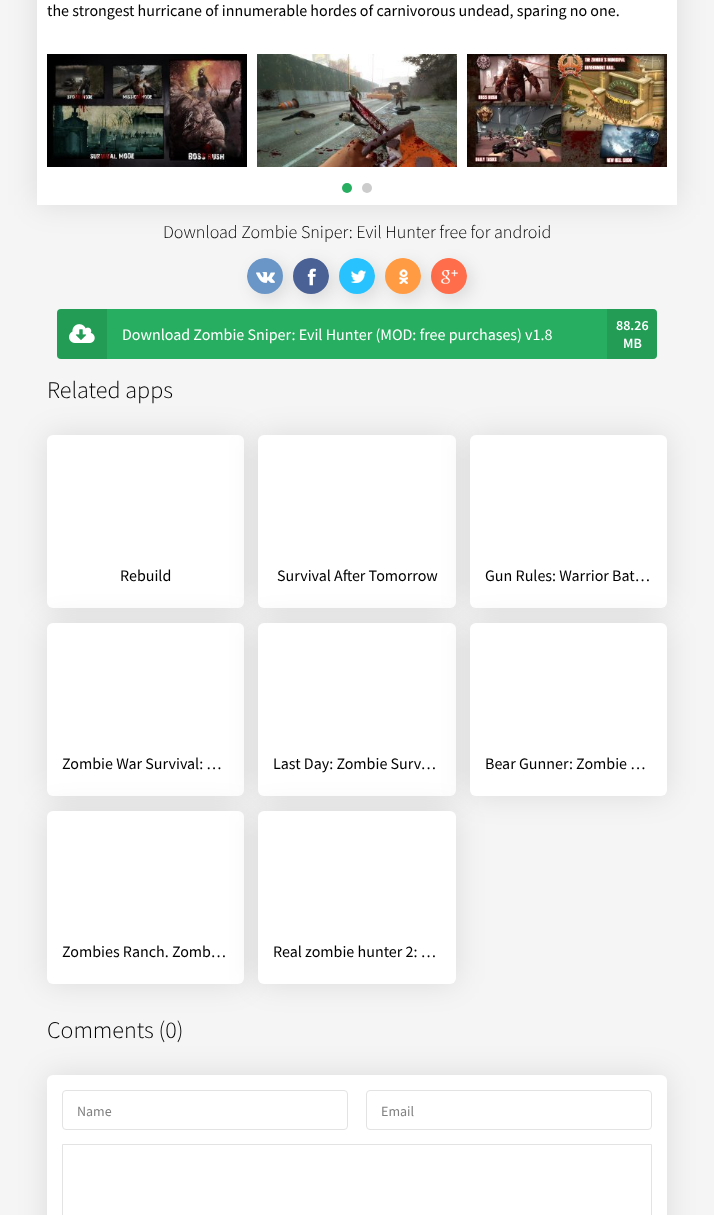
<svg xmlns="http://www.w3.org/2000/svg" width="714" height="1215">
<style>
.a{font:16px Source Sans Pro;fill:#000}
.b{font:300 18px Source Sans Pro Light;fill:#000}
.c{font:16px Source Sans Pro;fill:#fff}
.d{font:600 14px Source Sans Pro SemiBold;fill:#fff}
.e{font:300 24px Source Sans Pro Light;fill:#000}
.f{font:14px Source Sans Pro;fill:#808080}
</style>
<rect width="100%" height="100%" fill="#f5f5f5"/>
<path fill="#0000001a" filter="blur(15px)" d="M37 -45h640v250H37z"/>
<path fill="#fff" d="M37 0h640v205H37z"/>
<image href="1.png" x="47" y="54" width="200" height="113"/>
<image href="2.png" x="257" y="54" width="200" height="113"/>
<image href="3.png" x="467" y="54" width="200" height="113"/>
<circle fill="#27ae60" cx="347" cy="188" r="5"/>
<circle fill="#ccc" cx="367" cy="188" r="5"/>
<rect fill="#0000001a" filter="blur(8px)" x="252" y="263" width="36" height="36" rx="18"/>
<image href="4.png" x="247" y="258" width="36" height="36"/>
<rect fill="#0000001a" filter="blur(8px)" x="298" y="263" width="36" height="36" rx="18"/>
<image href="5.png" x="293" y="258" width="36" height="36"/>
<rect fill="#0000001a" filter="blur(8px)" x="344" y="263" width="36" height="36" rx="18"/>
<image href="6.png" x="339" y="258" width="36" height="36"/>
<rect fill="#0000001a" filter="blur(8px)" x="390" y="263" width="36" height="36" rx="18"/>
<image href="7.png" x="385" y="258" width="36" height="36"/>
<rect fill="#0000001a" filter="blur(8px)" x="436" y="263" width="36" height="36" rx="18"/>
<image href="8.png" x="431" y="258" width="36" height="36"/>
<rect fill="#27ae60" x="57" y="309" width="600" height="50" rx="4"/>
<path fill="#0000001a" d="M61 309h46v50h-46c-2 0-4-2-4-4v-42c0-2 2-4 4-4z"/>
<image href="9.png" x="69" y="324" width="26" height="19"/>
<path fill="#0000001a" d="M607 309h46c2 0 4 2 4 4v42c0 2-2 4-4 4h-46z"/>
<rect fill="#0000001a" filter="blur(15px)" x="47" y="435" width="197" height="173" rx="6"/>
<rect fill="#fff" x="47" y="435" width="197" height="173" rx="6"/>
<rect fill="#0000001a" filter="blur(15px)" x="258" y="435" width="198" height="173" rx="6"/>
<rect fill="#fff" x="258" y="435" width="198" height="173" rx="6"/>
<rect fill="#0000001a" filter="blur(15px)" x="470" y="435" width="197" height="173" rx="6"/>
<rect fill="#fff" x="470" y="435" width="197" height="173" rx="6"/>
<rect fill="#0000001a" filter="blur(15px)" x="47" y="623" width="197" height="173" rx="6"/>
<rect fill="#fff" x="47" y="623" width="197" height="173" rx="6"/>
<rect fill="#0000001a" filter="blur(15px)" x="258" y="623" width="198" height="173" rx="6"/>
<rect fill="#fff" x="258" y="623" width="198" height="173" rx="6"/>
<rect fill="#0000001a" filter="blur(15px)" x="470" y="623" width="197" height="173" rx="6"/>
<rect fill="#fff" x="470" y="623" width="197" height="173" rx="6"/>
<rect fill="#0000001a" filter="blur(15px)" x="47" y="811" width="197" height="173" rx="6"/>
<rect fill="#fff" x="47" y="811" width="197" height="173" rx="6"/>
<rect fill="#0000001a" filter="blur(15px)" x="258" y="811" width="198" height="173" rx="6"/>
<rect fill="#fff" x="258" y="811" width="198" height="173" rx="6"/>
<rect fill="#0000001a" filter="blur(15px)" x="47" y="1075" width="620" height="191" rx="6"/>
<rect fill="#fff" x="47" y="1075" width="620" height="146" rx="6"/>
<rect fill="none" stroke="#e3e3e3" x="62.5" y="1090.5" width="285" height="39" rx="3.5"/>
<rect fill="none" stroke="#e3e3e3" x="366.5" y="1090.5" width="285" height="39" rx="3.5"/>
<path fill="none" stroke="#e3e3e3" d="M62.5 1144.5h589v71H62.5z"/>
<text class="a" x="47" y="16">the strongest hurricane of innumerable hordes of carnivorous undead, sparing no one.</text>
<text class="b" x="163" y="238">Download Zombie Sniper: Evil Hunter free for android</text>
<text class="c" x="122" y="340">Download Zombie Sniper: Evil Hunter (MOD: free purchases) v1.8</text>
<text class="d" x="616" y="330">88.26</text>
<text class="d" x="623" y="348">MB</text>
<text class="e" x="47" y="398">Related apps</text>
<text class="a" x="120" y="581">Rebuild</text>
<text class="a" x="277" y="581">Survival After Tomorrow</text>
<text class="a" x="485" y="581">Gun Rules: Warrior Bat…</text>
<text class="a" x="62" y="769">Zombie War Survival: …</text>
<text class="a" x="273" y="769">Last Day: Zombie Surv…</text>
<text class="a" x="485" y="769">Bear Gunner: Zombie …</text>
<text class="a" x="62" y="957">Zombies Ranch. Zomb…</text>
<text class="a" x="273" y="957">Real zombie hunter 2: …</text>
<text class="e" x="47" y="1038">Comments (0)</text>
<text class="f" x="77" y="1116">Name</text>
<text class="f" x="381" y="1116">Email</text>
</svg>
